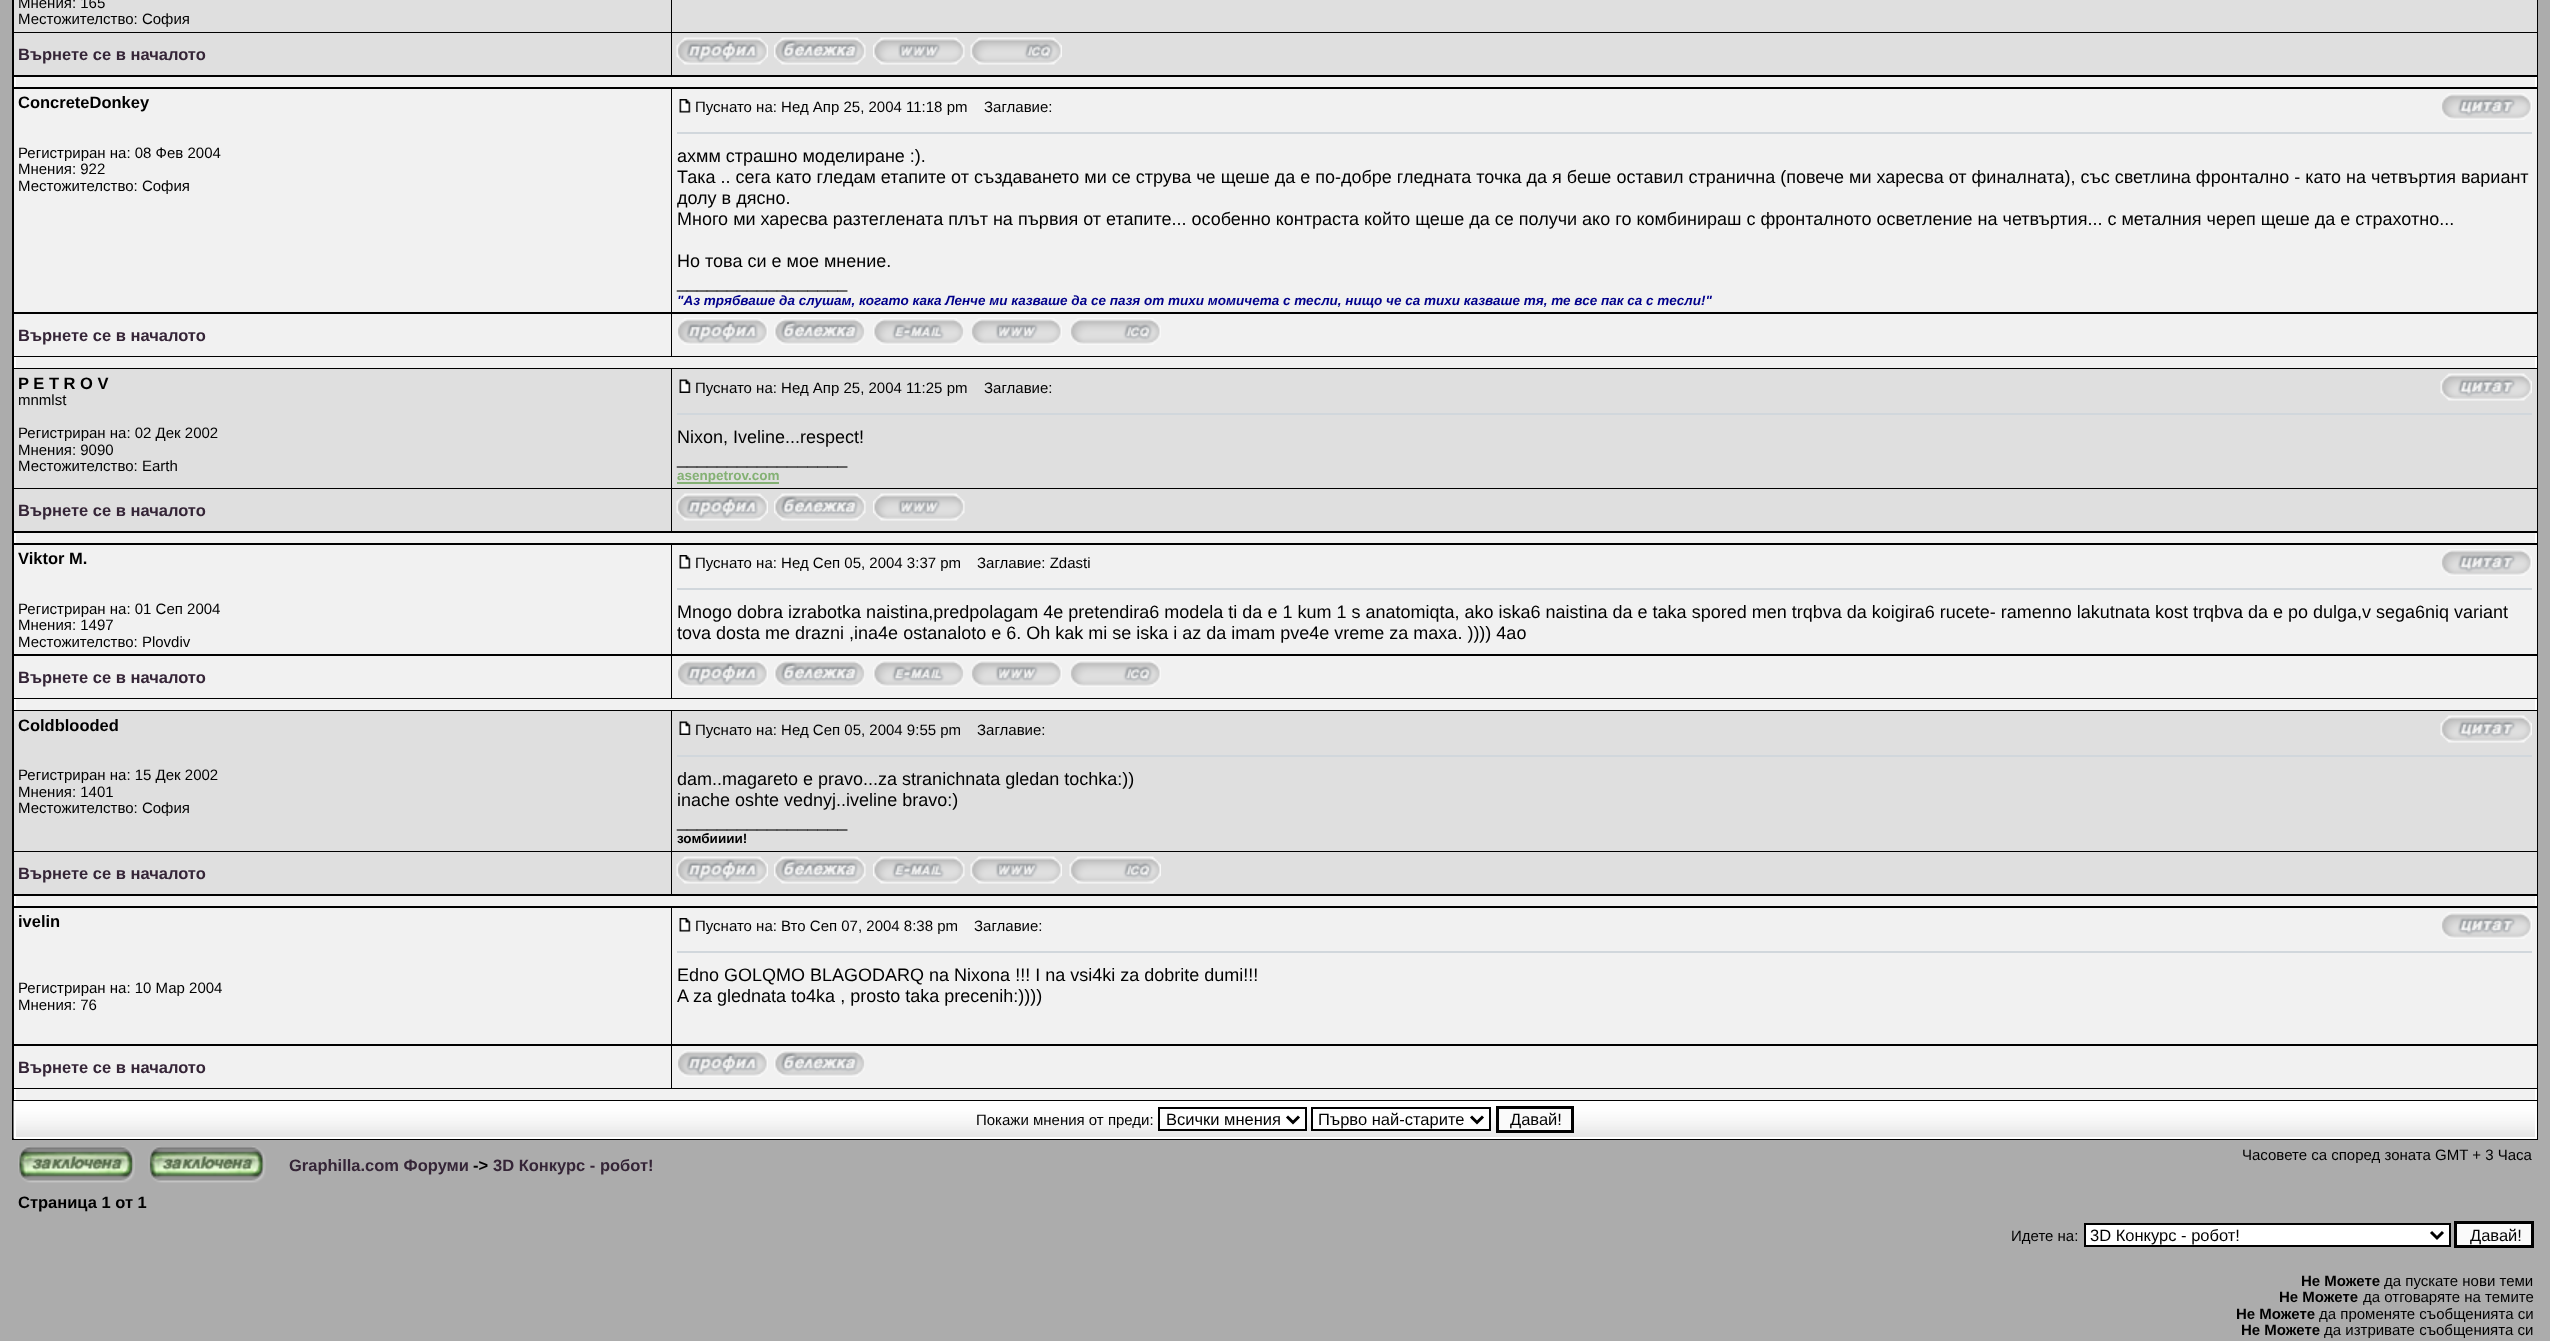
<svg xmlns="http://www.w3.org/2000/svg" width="2550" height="1341">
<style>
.a{font:15px Liberation Sans;fill:#000}
.b{font:bold 16.5px Liberation Sans;fill:#352537}
.c{font:bold 16.5px Liberation Sans;fill:#000}
.d{font:18px Liberation Sans;fill:#000}
.e{font:italic bold 13.5px Liberation Sans;fill:#00008b}
.f{font:bold 13.5px Liberation Sans;fill:#84b174}
.g{font:bold 13.5px Liberation Sans;fill:#000}
.h{font:16.5px Liberation Sans;fill:#000}
.i{font:bold 15px Liberation Sans;fill:#000}
</style>
<rect width="100%" height="100%" fill="#acacac"/>
<path fill="#000" d="M12 0h2526v1140H12z"/>
<path fill="#dfdfdf" d="M14 0h657v32H14z"/>
<path fill="#dfdfdf" d="M672 0h1865v32H672z"/>
<path fill="#dfdfdf" d="M14 33h657v42H14z"/>
<path fill="#dfdfdf" d="M672 33h1865v42H672z"/>
<image href="1.png" x="676" y="37" width="92" height="28"/>
<image href="2.png" x="774" y="37" width="92" height="28"/>
<image href="3.png" x="873" y="37" width="92" height="28"/>
<image href="4.png" x="970" y="37" width="92" height="28"/>
<path fill="#f1f1f1" d="M16 77h2519v10H16z"/>
<path fill="#fff" d="M2535 77h2v10H2535z"/>
<path fill="#fff" d="M14 77h2v10H14z"/>
<path fill="#f1f1f1" d="M14 89h657v223H14z"/>
<path fill="#f1f1f1" d="M672 89h1865v223H672z"/>
<image href="5.png" x="679" y="99" width="12" height="14"/>
<image href="6.png" x="2441" y="93" width="91" height="27"/>
<path fill="#d1d7dc" d="M677 132h1855v2H677z"/>
<path fill="#f1f1f1" d="M14 314h657v42H14z"/>
<path fill="#f1f1f1" d="M672 314h1865v42H672z"/>
<image href="7.png" x="677" y="318" width="91" height="27"/>
<image href="8.png" x="774" y="318" width="91" height="27"/>
<image href="9.png" x="873" y="318" width="91" height="27"/>
<image href="10.png" x="971" y="318" width="91" height="27"/>
<image href="11.png" x="1070" y="318" width="91" height="27"/>
<path fill="#f1f1f1" d="M16 357h2519v11H16z"/>
<path fill="#fff" d="M2535 357h2v11H2535z"/>
<path fill="#fff" d="M14 357h2v11H14z"/>
<path fill="#dfdfdf" d="M14 369h657v119H14z"/>
<path fill="#dfdfdf" d="M672 369h1865v119H672z"/>
<image href="12.png" x="679" y="379" width="12" height="14"/>
<image href="13.png" x="2440" y="373" width="92" height="28"/>
<path fill="#d1d7dc" d="M677 413h1855v2H677z"/>
<path fill="#84b174" d="M677 482h102v2H677z"/>
<path fill="#dfdfdf" d="M14 489h657v42H14z"/>
<path fill="#dfdfdf" d="M672 489h1865v42H672z"/>
<image href="1.png" x="676" y="493" width="92" height="28"/>
<image href="2.png" x="774" y="493" width="92" height="28"/>
<image href="3.png" x="873" y="493" width="92" height="28"/>
<path fill="#f1f1f1" d="M16 533h2519v10H16z"/>
<path fill="#fff" d="M2535 533h2v10H2535z"/>
<path fill="#fff" d="M14 533h2v10H14z"/>
<path fill="#f1f1f1" d="M14 545h657v109H14z"/>
<path fill="#f1f1f1" d="M672 545h1865v109H672z"/>
<image href="5.png" x="679" y="555" width="12" height="14"/>
<image href="6.png" x="2441" y="549" width="91" height="27"/>
<path fill="#d1d7dc" d="M677 588h1855v2H677z"/>
<path fill="#f1f1f1" d="M14 656h657v42H14z"/>
<path fill="#f1f1f1" d="M672 656h1865v42H672z"/>
<image href="7.png" x="677" y="660" width="91" height="27"/>
<image href="8.png" x="774" y="660" width="91" height="27"/>
<image href="9.png" x="873" y="660" width="91" height="27"/>
<image href="10.png" x="971" y="660" width="91" height="27"/>
<image href="11.png" x="1070" y="660" width="91" height="27"/>
<path fill="#f1f1f1" d="M16 699h2519v11H16z"/>
<path fill="#fff" d="M2535 699h2v11H2535z"/>
<path fill="#fff" d="M14 699h2v11H14z"/>
<path fill="#dfdfdf" d="M14 711h657v140H14z"/>
<path fill="#dfdfdf" d="M672 711h1865v140H672z"/>
<image href="12.png" x="679" y="721" width="12" height="14"/>
<image href="13.png" x="2440" y="715" width="92" height="28"/>
<path fill="#d1d7dc" d="M677 755h1855v2H677z"/>
<path fill="#dfdfdf" d="M14 852h657v42H14z"/>
<path fill="#dfdfdf" d="M672 852h1865v42H672z"/>
<image href="1.png" x="676" y="856" width="92" height="28"/>
<image href="2.png" x="774" y="856" width="92" height="28"/>
<image href="14.png" x="873" y="856" width="92" height="28"/>
<image href="15.png" x="970" y="856" width="92" height="28"/>
<image href="4.png" x="1069" y="856" width="92" height="28"/>
<path fill="#f1f1f1" d="M16 896h2519v10H16z"/>
<path fill="#fff" d="M2535 896h2v10H2535z"/>
<path fill="#fff" d="M14 896h2v10H14z"/>
<path fill="#f1f1f1" d="M14 908h657v136H14z"/>
<path fill="#f1f1f1" d="M672 908h1865v136H672z"/>
<image href="5.png" x="679" y="918" width="12" height="14"/>
<image href="6.png" x="2441" y="912" width="91" height="27"/>
<path fill="#d1d7dc" d="M677 951h1855v2H677z"/>
<path fill="#f1f1f1" d="M14 1046h657v42H14z"/>
<path fill="#f1f1f1" d="M672 1046h1865v42H672z"/>
<image href="7.png" x="677" y="1050" width="91" height="27"/>
<image href="8.png" x="774" y="1050" width="91" height="27"/>
<path fill="#f1f1f1" d="M16 1089h2519v11H16z"/>
<path fill="#fff" d="M2535 1089h2v11H2535z"/>
<path fill="#fff" d="M14 1089h2v11H14z"/>
<image href="16.png" x="13" y="1101" width="2522" height="38"/>
<path fill="#fff" d="M2535 1101h2v38H2535z"/>
<path fill="#fff" d="M14 1137h2523v2H14z"/>
<path fill="#fff" d="M14 1112h2v27H14z"/>
<path fill="#fff" d="M1160 1112h145v17H1160z"/>
<path fill="none" stroke="#000" stroke-width="2" d="M1159 1108h147v22H1159z"/>
<path fill="none" stroke="#000" stroke-width="3" d="M1287 1116.5l6 6l6-6"/>
<path fill="#fff" d="M1313 1112h176v17H1313z"/>
<path fill="none" stroke="#000" stroke-width="2" d="M1312 1108h178v22H1312z"/>
<path fill="none" stroke="#000" stroke-width="3" d="M1471 1116.5l6 6l6-6"/>
<path fill="#fafafa" stroke="#000" stroke-width="3" d="M1497.5 1107.5h75v24H1497.5z"/>
<image href="17.png" x="18" y="1146" width="117" height="37"/>
<image href="18.png" x="148" y="1146" width="118" height="37"/>
<path fill="#fff" stroke="#000" stroke-width="2" d="M2085 1224h365v22H2085z"/>
<path fill="none" stroke="#000" stroke-width="3" d="M2431 1232l6 6l6-6"/>
<path fill="#fafafa" stroke="#000" stroke-width="3" d="M2455.5 1222.5h77v24H2455.5z"/>
<text class="a" x="18" y="8">Мнения: 165</text>
<text class="a" x="18" y="24">Местожителство: София</text>
<text class="b" x="18" y="60">Върнете се в началото</text>
<text class="c" x="18" y="108">ConcreteDonkey</text>
<text class="a" x="18" y="158">Регистриран на: 08 Фев 2004</text>
<text class="a" x="18" y="174">Мнения: 922</text>
<text class="a" x="18" y="191">Местожителство: София</text>
<text class="a" x="695" y="112">Пуснато на: Нед Апр 25, 2004 11:18 pm</text>
<text class="a" x="984" y="112">Заглавие:</text>
<text class="d" x="677" y="162">ахмм страшно моделиране :).</text>
<text class="d" x="677" y="183">Така .. сега като гледам етапите от създаването ми се струва че щеше да е по-добре гледната точка да я беше оставил странична (повече ми харесва от финалната), със светлина фронтално - като на четвъртия вариант</text>
<text class="d" x="677" y="204">долу в дясно.</text>
<text class="d" x="677" y="225">Много ми харесва разтеглената плът на първия от етапите... особенно контраста който щеше да се получи ако го комбинираш с фронталното осветление на четвъртия... с металния череп щеше да е страхотно...</text>
<text class="d" x="677" y="267">Но това си е мое мнение.</text>
<text class="d" x="677" y="288">_________________</text>
<text class="e" x="677" y="305">"Аз трябваше да слушам, когато кака Ленче ми казваше да се пазя от тихи момичета с тесли, нищо че са тихи казваше тя, те все пак са с тесли!"</text>
<text class="b" x="18" y="341">Върнете се в началото</text>
<text class="c" x="18" y="389">P E T R O V</text>
<text class="a" x="18" y="405">mnmlst</text>
<text class="a" x="18" y="438">Регистриран на: 02 Дек 2002</text>
<text class="a" x="18" y="455">Мнения: 9090</text>
<text class="a" x="18" y="471">Местожителство: Earth</text>
<text class="a" x="695" y="393">Пуснато на: Нед Апр 25, 2004 11:25 pm</text>
<text class="a" x="984" y="393">Заглавие:</text>
<text class="d" x="677" y="443">Nixon, Iveline...respect!</text>
<text class="d" x="677" y="464">_________________</text>
<text class="f" x="677" y="480">asenpetrov.com</text>
<text class="b" x="18" y="516">Върнете се в началото</text>
<text class="c" x="18" y="564">Viktor M.</text>
<text class="a" x="18" y="614">Регистриран на: 01 Сеп 2004</text>
<text class="a" x="18" y="630">Мнения: 1497</text>
<text class="a" x="18" y="647">Местожителство: Plovdiv</text>
<text class="a" x="695" y="568">Пуснато на: Нед Сеп 05, 2004 3:37 pm</text>
<text class="a" x="977" y="568">Заглавие: Zdasti</text>
<text class="d" x="677" y="618">Mnogo dobra izrabotka naistina,predpolagam 4e pretendira6 modela ti da e 1 kum 1 s anatomiqta, ako iska6 naistina da e taka spored men trqbva da koigira6 rucete- ramenno lakutnata kost trqbva da e po dulga,v sega6niq variant</text>
<text class="d" x="677" y="639">tova dosta me drazni ,ina4e ostanaloto e 6. Oh kak mi se iska i az da imam pve4e vreme za maxa. )))) 4ao</text>
<text class="b" x="18" y="683">Върнете се в началото</text>
<text class="c" x="18" y="731">Coldblooded</text>
<text class="a" x="18" y="780">Регистриран на: 15 Дек 2002</text>
<text class="a" x="18" y="797">Мнения: 1401</text>
<text class="a" x="18" y="813">Местожителство: София</text>
<text class="a" x="695" y="735">Пуснато на: Нед Сеп 05, 2004 9:55 pm</text>
<text class="a" x="977" y="735">Заглавие:</text>
<text class="d" x="677" y="785">dam..magareto e pravo...za stranichnata gledan tochka:))</text>
<text class="d" x="677" y="806">inache oshte vednyj..iveline bravo:)</text>
<text class="d" x="677" y="827">_________________</text>
<text class="g" x="677" y="843">зомбииии!</text>
<text class="b" x="18" y="879">Върнете се в началото</text>
<text class="c" x="18" y="927">ivelin</text>
<text class="a" x="18" y="993">Регистриран на: 10 Мар 2004</text>
<text class="a" x="18" y="1010">Мнения: 76</text>
<text class="a" x="695" y="931">Пуснато на: Вто Сеп 07, 2004 8:38 pm</text>
<text class="a" x="974" y="931">Заглавие:</text>
<text class="d" x="677" y="981">Edno GOLQMO BLAGODARQ na Nixona !!! I na vsi4ki za dobrite dumi!!!</text>
<text class="d" x="677" y="1002">A za glednata to4ka , prosto taka precenih:))))</text>
<text class="b" x="18" y="1073">Върнете се в началото</text>
<text class="a" x="976" y="1125">Покажи мнения от преди:</text>
<text class="h" x="1166" y="1125">Всички мнения</text>
<text class="h" x="1318" y="1125">Първо най-старите</text>
<text class="h" x="1510" y="1125">Давай!</text>
<text class="a" x="2242" y="1160">Часовете са според зоната GMT + 3 Часа</text>
<text class="b" x="289" y="1171">Graphilla.com Форуми</text>
<text class="c" x="473" y="1171">-&gt;</text>
<text class="b" x="493" y="1171">3D Конкурс - робот!</text>
<text class="c" x="18" y="1208">Страница 1 от 1</text>
<text class="a" x="2011" y="1241">Идете на:</text>
<text class="h" x="2090" y="1241">3D Конкурс - робот!</text>
<text class="h" x="2470" y="1241">Давай!</text>
<text class="i" x="2301" y="1286">Не Можете</text>
<text class="a" x="2384" y="1286">да пускате нови теми</text>
<text class="i" x="2279" y="1302">Не Можете</text>
<text class="a" x="2363" y="1302">да отговаряте на темите</text>
<text class="i" x="2236" y="1319">Не Можете</text>
<text class="a" x="2319" y="1319">да променяте съобщенията си</text>
<text class="i" x="2241" y="1335">Не Можете</text>
<text class="a" x="2324" y="1335">да изтривате съобщенията си</text>
</svg>
